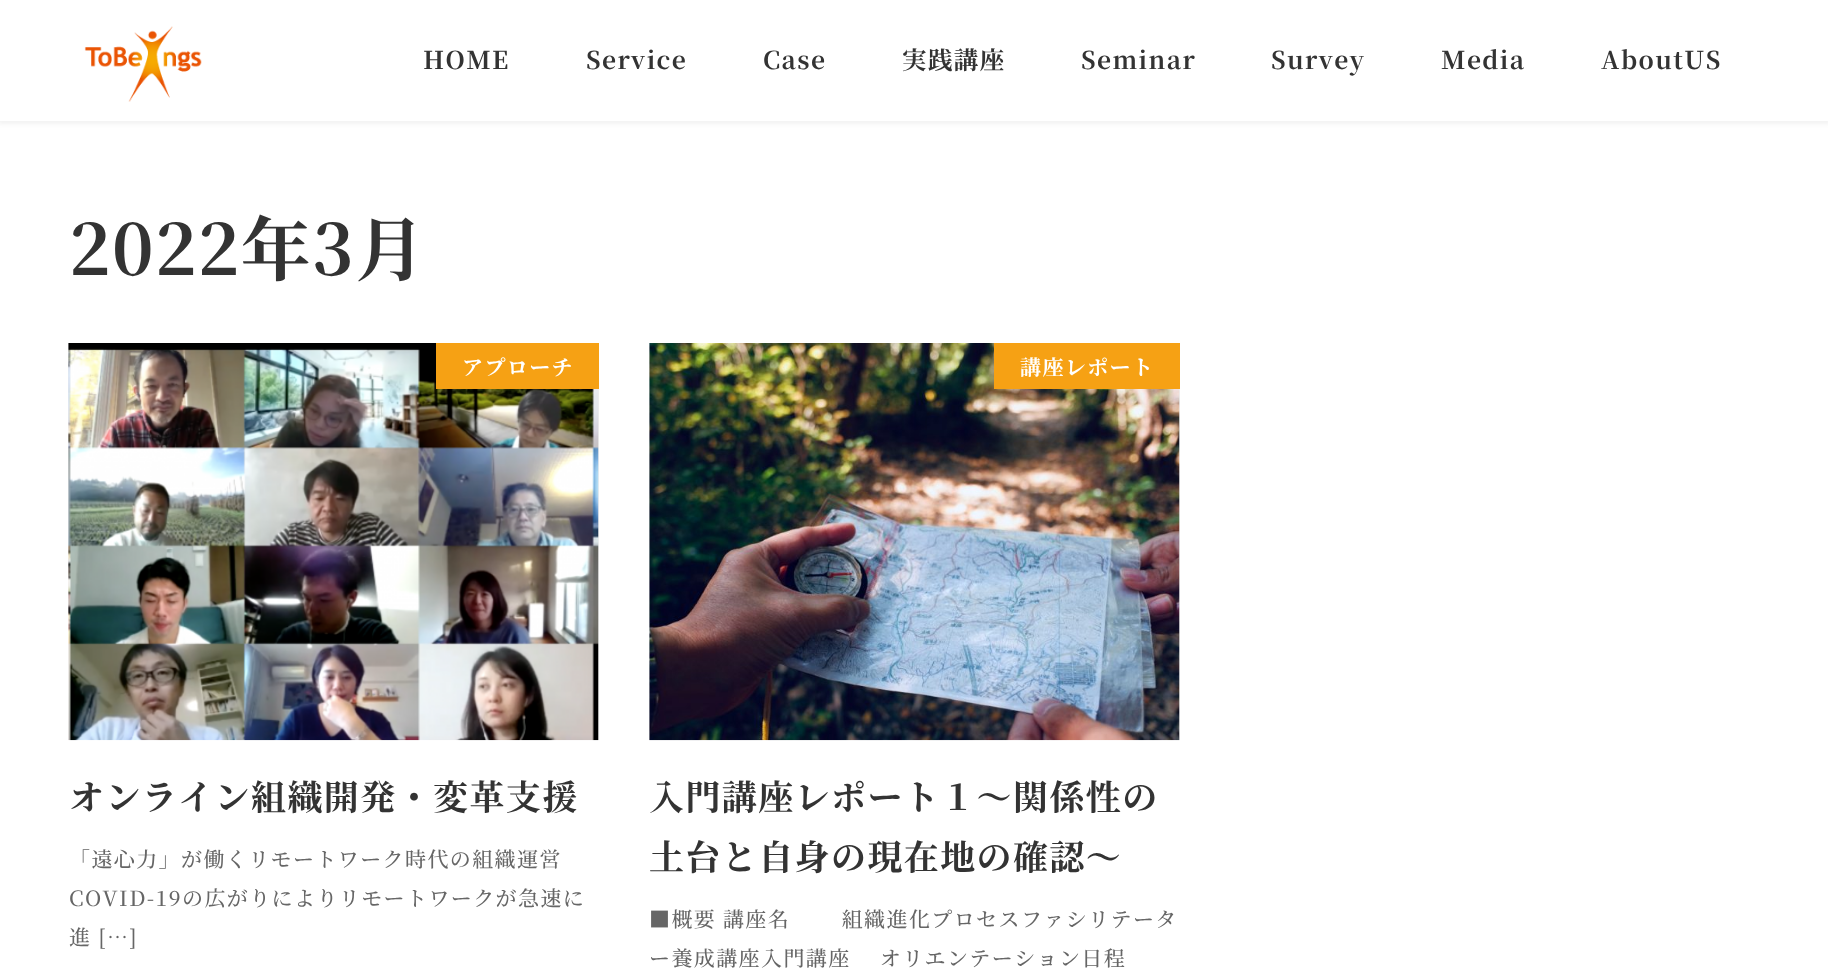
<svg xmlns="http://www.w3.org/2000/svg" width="1828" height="970">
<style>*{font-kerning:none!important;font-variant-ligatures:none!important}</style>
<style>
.a{font:bold 24.5px Noto Serif JP;letter-spacing:1.4px;fill:#333}
.b{font:bold 70px Noto Serif JP;letter-spacing:1.4px;fill:#333}
.c{font:bold 21px Noto Serif JP;letter-spacing:1.4px;fill:#fff}
.d{font:bold 35px Noto Serif JP;letter-spacing:1.4px;fill:#333}
.e{font:500 21px Noto Serif JP;letter-spacing:1.4px;fill:#666}
</style>
<rect width="100%" height="100%" fill="#fff"/>
<path fill="#0000000d" filter="blur(2px)" d="M-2 0h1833v124H-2z"/>
<path fill="#fff" d="M0 0h1828v121H0z"/>
<image href="1.png" x="84" y="26" width="118" height="76"/>
<path fill="#eee" d="M68 343h531v397H68z"/>
<image href="2.png" x="68" y="343" width="531" height="398"/>
<path fill="#f6a114" d="M436 343h163v46H436z"/>
<path fill="#eee" d="M649 343h531v397H649z"/>
<image href="3.png" x="649" y="343" width="531" height="398"/>
<path fill="#f6a114" d="M994 343h186v46H994z"/>
<text class="a" x="423" y="69">HOME</text>
<text class="a" x="586" y="69">Service</text>
<text class="a" x="763" y="69">Case</text>
<text class="a" x="902" y="69">実践講座</text>
<text class="a" x="1081" y="69">Seminar</text>
<text class="a" x="1271" y="69">Survey</text>
<text class="a" x="1441" y="69">Media</text>
<text class="a" x="1601" y="69">AboutUS</text>
<text class="b" x="69" y="275">2022年3月</text>
<text class="c" x="462" y="375">アプローチ</text>
<text class="d" x="69" y="810">オンライン組織開発・変革支援</text>
<text class="e" x="69" y="867">「遠心力」が働くリモートワーク時代の組織運営</text>
<text class="e" x="69" y="906">COVID-19の広がりによりリモートワークが急速に</text>
<text class="e" x="69" y="945">進 […]</text>
<text class="c" x="1020" y="375">講座レポート</text>
<text class="d" x="649" y="810">入門講座レポート１〜関係性の</text>
<text class="d" x="649" y="870">土台と自身の現在地の確認〜</text>
<text class="e" x="649" y="927">■概要 講座名　　 組織進化プロセスファシリテータ</text>
<text class="e" x="649" y="966">ー養成講座入門講座 　オリエンテーション日程</text>
</svg>
